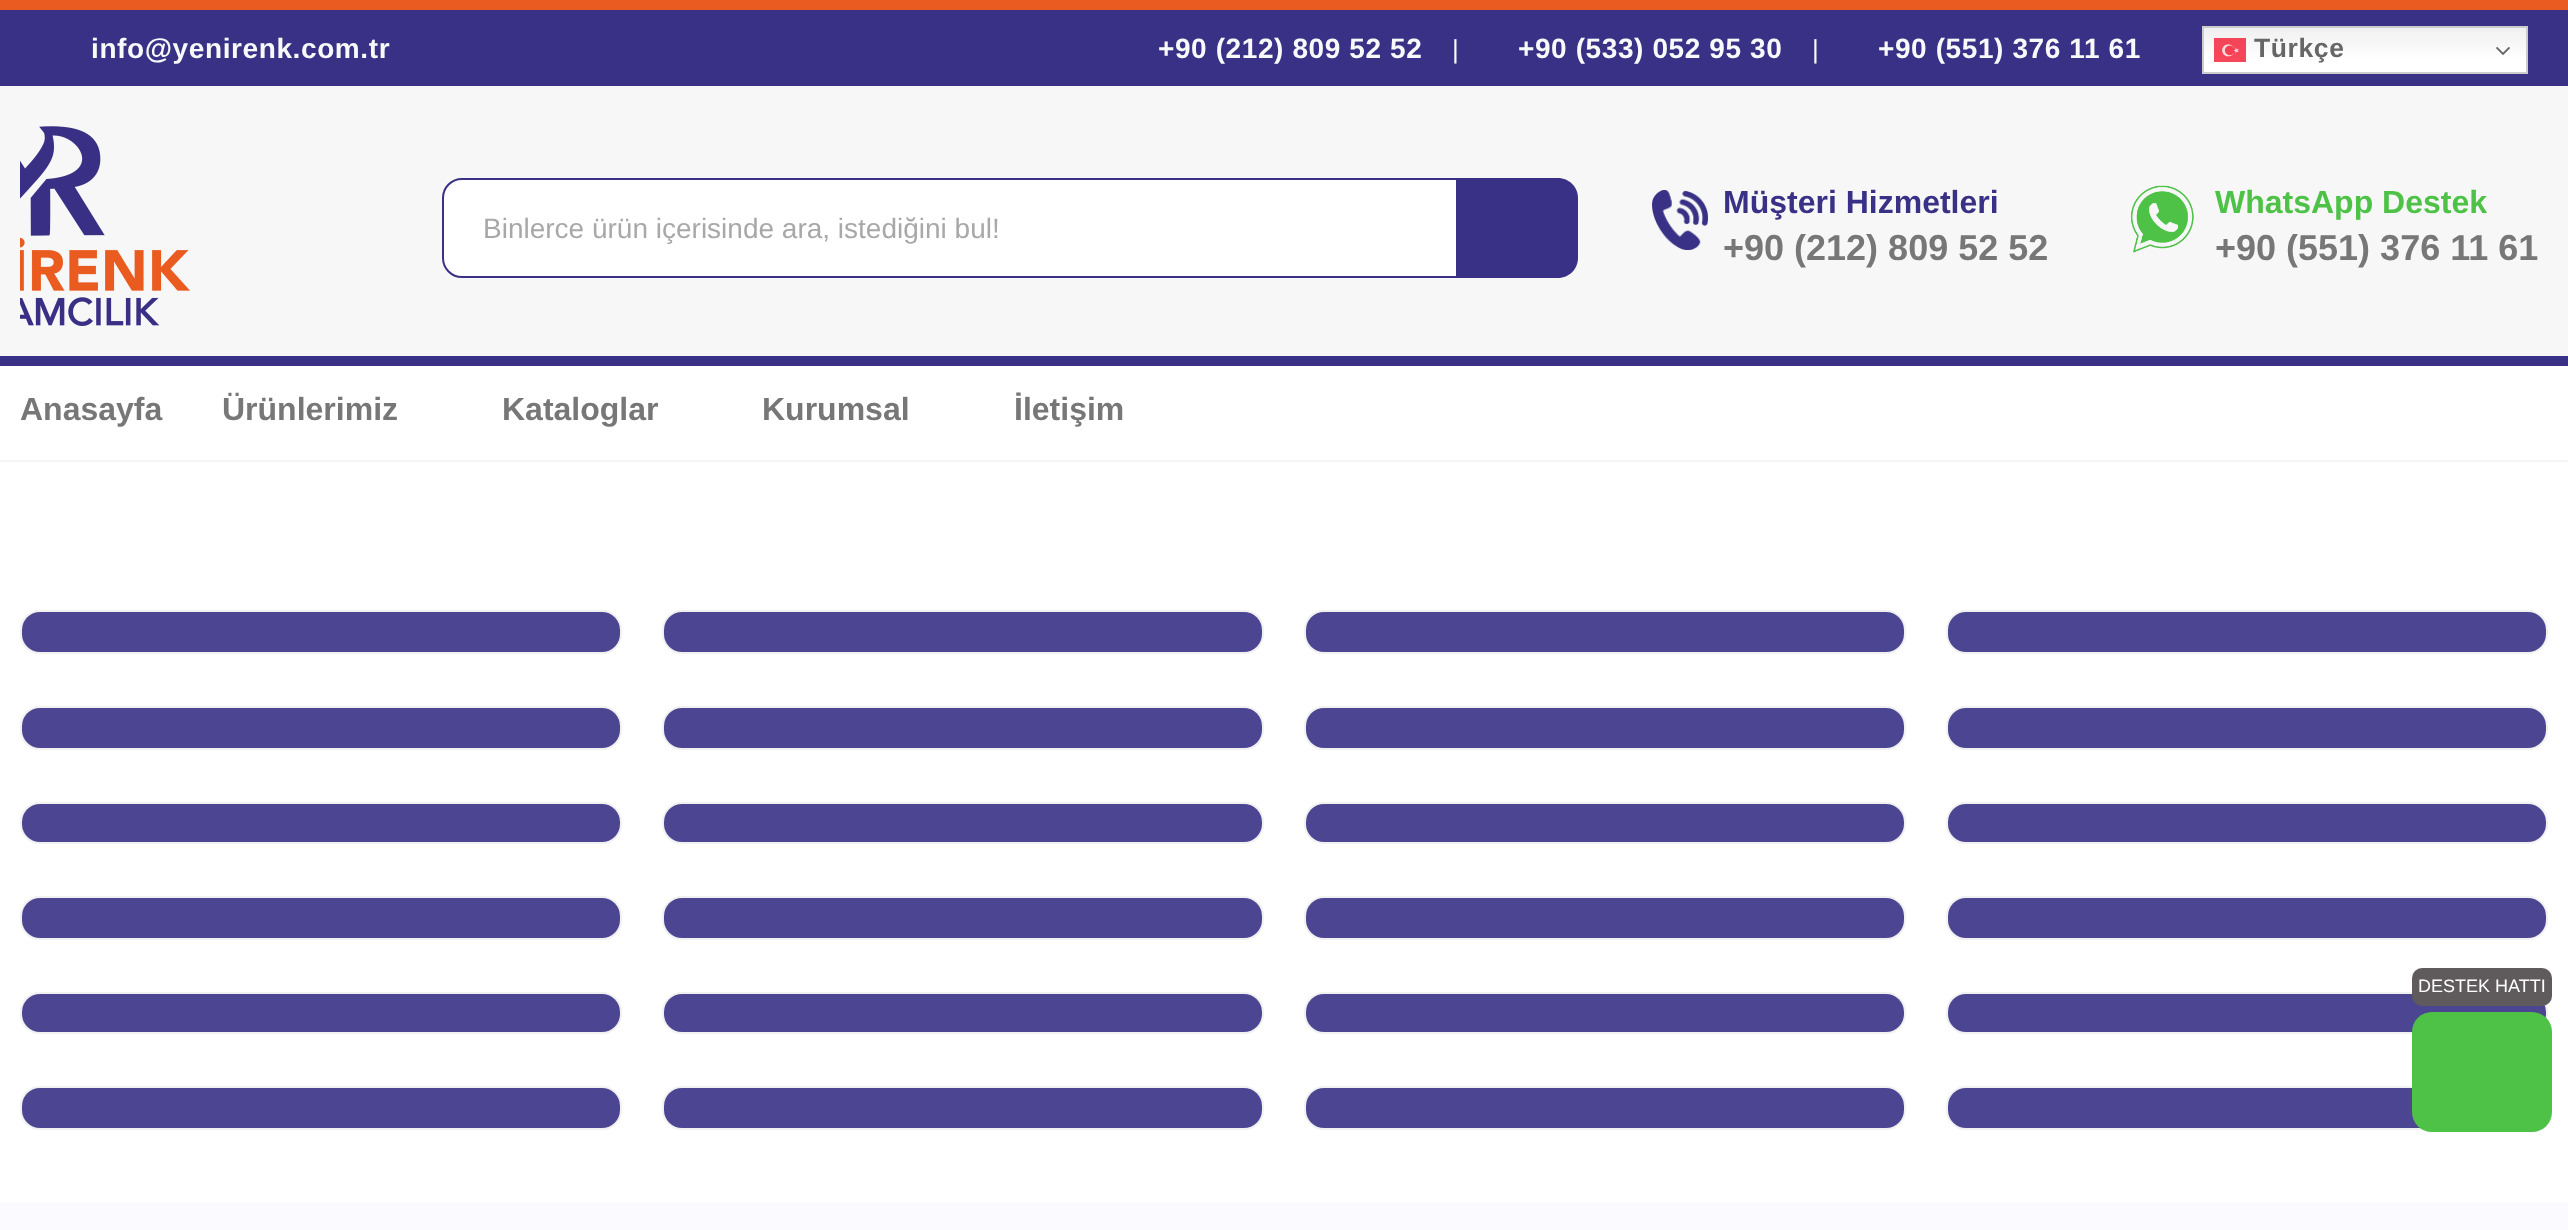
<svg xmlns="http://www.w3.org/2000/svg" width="2568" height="1230">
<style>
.a{font:bold 28px Liberation Sans;letter-spacing:0.6px;fill:#f8f9fa}
.b{font:26px Liberation Sans;letter-spacing:0.6px;fill:#f8f9fa}
.c{font:bold 26.5px Liberation Sans;letter-spacing:0.6px;fill:#666}
.d{font:28px Liberation Sans;fill:#a8a8a8}
.e{font:bold 32px Liberation Sans;fill:#393185}
.f{font:bold 36px Liberation Sans;fill:#777}
.g{font:bold 32px Liberation Sans;fill:#4dc247}
.h{font:bold 32px Liberation Sans;fill:#777}
.i{font:18px Liberation Sans;fill:#fff}
</style>
<defs>
<linearGradient id="g1" gradientUnits="userSpaceOnUse" x1="2365" y1="26" x2="2365" y2="74"><stop offset="0" stop-color="#efefef"/><stop offset="0.7" stop-color="#fff"/></linearGradient>
</defs>
<rect width="100%" height="100%" fill="#fff"/>
<path fill="#ea5b21" d="M0 0h2568v10H0z"/>
<path fill="#393185" d="M0 10h2568v76H0z"/>
<path fill="url(#g1)" d="M2204 28h322v44H2204z"/>
<path fill="none" stroke="#ccc" stroke-width="2" d="M2203 27h324v46H2203z"/>
<image href="1.png" x="2214" y="38" width="32" height="24"/>
<image href="2.png" x="2496" y="47" width="14" height="8"/>
<path fill="#f4f4f4" d="M0 460h2568v2H0z"/>
<path fill="#f7f7f7" d="M0 86h2568v270H0z"/>
<path fill="#393185" d="M0 356h2568v10H0z"/>
<image href="3.png" x="20" y="126" width="170" height="200"/>
<path fill="#fff" stroke="#393185" stroke-width="2" d="M462 179h995v98h-995c-10.5 0-19-8.5-19-19v-60c0-10.5 8.5-19 19-19z"/>
<path fill="#393185" d="M1458 178h100c11 0 20 9 20 20v60c0 11-9 20-20 20h-100z"/>
<image href="4.png" x="1652" y="190" width="56" height="60"/>
<image href="5.png" x="2130" y="185" width="64" height="68"/>
<rect fill="none" stroke="#f1f1f1" stroke-width="2" x="21" y="611" width="600" height="42" rx="19"/>
<rect fill="#393185e6" x="22" y="612" width="598" height="40" rx="18"/>
<rect fill="none" stroke="#f1f1f1" stroke-width="2" x="663" y="611" width="600" height="42" rx="19"/>
<rect fill="#393185e6" x="664" y="612" width="598" height="40" rx="18"/>
<rect fill="none" stroke="#f1f1f1" stroke-width="2" x="1305" y="611" width="600" height="42" rx="19"/>
<rect fill="#393185e6" x="1306" y="612" width="598" height="40" rx="18"/>
<rect fill="none" stroke="#f1f1f1" stroke-width="2" x="1947" y="611" width="600" height="42" rx="19"/>
<rect fill="#393185e6" x="1948" y="612" width="598" height="40" rx="18"/>
<rect fill="none" stroke="#f1f1f1" stroke-width="2" x="21" y="707" width="600" height="42" rx="19"/>
<rect fill="#393185e6" x="22" y="708" width="598" height="40" rx="18"/>
<rect fill="none" stroke="#f1f1f1" stroke-width="2" x="663" y="707" width="600" height="42" rx="19"/>
<rect fill="#393185e6" x="664" y="708" width="598" height="40" rx="18"/>
<rect fill="none" stroke="#f1f1f1" stroke-width="2" x="1305" y="707" width="600" height="42" rx="19"/>
<rect fill="#393185e6" x="1306" y="708" width="598" height="40" rx="18"/>
<rect fill="none" stroke="#f1f1f1" stroke-width="2" x="1947" y="707" width="600" height="42" rx="19"/>
<rect fill="#393185e6" x="1948" y="708" width="598" height="40" rx="18"/>
<rect fill="none" stroke="#f1f1f1" stroke-width="2" x="21" y="803" width="600" height="40" rx="19"/>
<rect fill="#393185e6" x="22" y="804" width="598" height="38" rx="18"/>
<rect fill="none" stroke="#f1f1f1" stroke-width="2" x="663" y="803" width="600" height="40" rx="19"/>
<rect fill="#393185e6" x="664" y="804" width="598" height="38" rx="18"/>
<rect fill="none" stroke="#f1f1f1" stroke-width="2" x="1305" y="803" width="600" height="40" rx="19"/>
<rect fill="#393185e6" x="1306" y="804" width="598" height="38" rx="18"/>
<rect fill="none" stroke="#f1f1f1" stroke-width="2" x="1947" y="803" width="600" height="40" rx="19"/>
<rect fill="#393185e6" x="1948" y="804" width="598" height="38" rx="18"/>
<rect fill="none" stroke="#f1f1f1" stroke-width="2" x="21" y="897" width="600" height="42" rx="19"/>
<rect fill="#393185e6" x="22" y="898" width="598" height="40" rx="18"/>
<rect fill="none" stroke="#f1f1f1" stroke-width="2" x="663" y="897" width="600" height="42" rx="19"/>
<rect fill="#393185e6" x="664" y="898" width="598" height="40" rx="18"/>
<rect fill="none" stroke="#f1f1f1" stroke-width="2" x="1305" y="897" width="600" height="42" rx="19"/>
<rect fill="#393185e6" x="1306" y="898" width="598" height="40" rx="18"/>
<rect fill="none" stroke="#f1f1f1" stroke-width="2" x="1947" y="897" width="600" height="42" rx="19"/>
<rect fill="#393185e6" x="1948" y="898" width="598" height="40" rx="18"/>
<rect fill="none" stroke="#f1f1f1" stroke-width="2" x="21" y="993" width="600" height="40" rx="19"/>
<rect fill="#393185e6" x="22" y="994" width="598" height="38" rx="18"/>
<rect fill="none" stroke="#f1f1f1" stroke-width="2" x="663" y="993" width="600" height="40" rx="19"/>
<rect fill="#393185e6" x="664" y="994" width="598" height="38" rx="18"/>
<rect fill="none" stroke="#f1f1f1" stroke-width="2" x="1305" y="993" width="600" height="40" rx="19"/>
<rect fill="#393185e6" x="1306" y="994" width="598" height="38" rx="18"/>
<rect fill="none" stroke="#f1f1f1" stroke-width="2" x="1947" y="993" width="600" height="40" rx="19"/>
<rect fill="#393185e6" x="1948" y="994" width="598" height="38" rx="18"/>
<rect fill="none" stroke="#f1f1f1" stroke-width="2" x="21" y="1087" width="600" height="42" rx="19"/>
<rect fill="#393185e6" x="22" y="1088" width="598" height="40" rx="18"/>
<rect fill="none" stroke="#f1f1f1" stroke-width="2" x="663" y="1087" width="600" height="42" rx="19"/>
<rect fill="#393185e6" x="664" y="1088" width="598" height="40" rx="18"/>
<rect fill="none" stroke="#f1f1f1" stroke-width="2" x="1305" y="1087" width="600" height="42" rx="19"/>
<rect fill="#393185e6" x="1306" y="1088" width="598" height="40" rx="18"/>
<rect fill="none" stroke="#f1f1f1" stroke-width="2" x="1947" y="1087" width="600" height="42" rx="19"/>
<rect fill="#393185e6" x="1948" y="1088" width="598" height="40" rx="18"/>
<rect fill="#5f5a5c" x="2412" y="968" width="140" height="38" rx="10"/>
<rect fill="#4dc247" x="2412" y="1012" width="140" height="120" rx="20"/>
<path fill="#fafaff" d="M0 1202h2568v28H0z"/>
<text class="a" x="91" y="58">info@yenirenk.com.tr</text>
<text class="a" x="1158" y="58">+90 (212) 809 52 52</text>
<text class="b" x="1452" y="58">|</text>
<text class="a" x="1518" y="58">+90 (533) 052 95 30</text>
<text class="b" x="1812" y="58">|</text>
<text class="a" x="1878" y="58">+90 (551) 376 11 61</text>
<text class="c" x="2254" y="57">Türkçe</text>
<text class="d" x="483" y="238">Binlerce ürün içerisinde ara, istediğini bul!</text>
<text class="e" x="1723" y="213">Müşteri Hizmetleri</text>
<text class="f" x="1723" y="260">+90 (212) 809 52 52</text>
<text class="g" x="2215" y="213">WhatsApp Destek</text>
<text class="f" x="2215" y="260">+90 (551) 376 11 61</text>
<text class="h" x="20" y="420">Anasayfa</text>
<text class="h" x="222" y="420">Ürünlerimiz</text>
<text class="h" x="502" y="420">Kataloglar</text>
<text class="h" x="762" y="420">Kurumsal</text>
<text class="h" x="1014" y="420">İletişim</text>
<text class="i" x="2418" y="992">DESTEK HATTI</text>
</svg>
